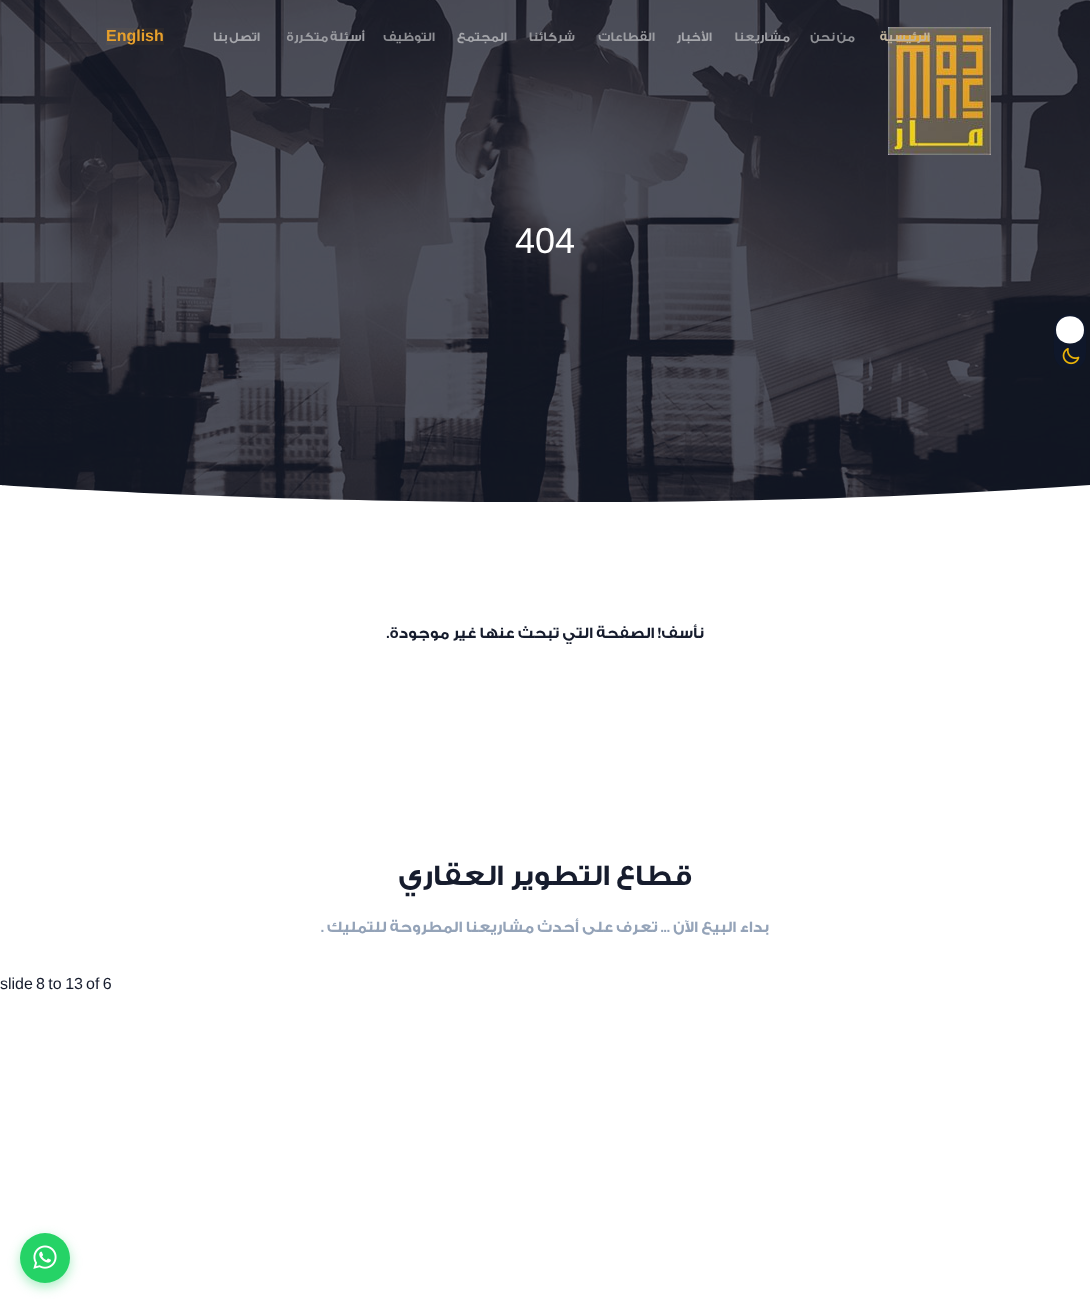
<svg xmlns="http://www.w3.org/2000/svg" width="1090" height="1303">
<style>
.a{font:bold 13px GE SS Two;letter-spacing:1px;direction:rtl;fill:#c1b49e}
.b{font:bold 13px GE SS Two;letter-spacing:1px;direction:rtl;fill:#8e8f94}
.c{font:bold 13px GE SS Two;letter-spacing:1px;direction:rtl;fill:#9c9da2}
.d{font:bold 13px GE SS Two;letter-spacing:1px;direction:rtl;fill:#a5a6ab}
.e{font:bold 13px GE SS Two;letter-spacing:1px;direction:rtl;fill:#95959a}
.f{font:bold 16px Liberation Sans;fill:#e8a02c}
.g{font:36px Liberation Sans;fill:#fff}
.h{font:bold 16px GE SS Two;direction:rtl;fill:#161c2d}
.i{font:bold 30px GE SS Two;direction:rtl;fill:#161c2d}
.j{font:bold 16px GE SS Two;direction:rtl;fill:#94a3b8}
.k{font:bold 16px GE SS Two;fill:#94a3b8}
.l{font:16px Liberation Sans;fill:#161c2d}
</style>
<defs>
<clipPath id="clip1"><path d="M0 485h1090v18H0z"/></clipPath>
</defs>
<rect width="100%" height="100%" fill="#fff"/>
<image href="2.png" x="0" y="0" width="1090" height="502"/>
<image href="1.png" x="888" y="27" width="103" height="128"/>
<path fill="#e8a02c0d" d="M106 28h58v17H106z"/>
<path fill="#0f172a" d="M1086 330c0 7 1 24-1 30c-7 16-30 11-31-6c0-7-1-25 1-30c7-16 31-11 31 6z"/>
<path fill="#fff" d="M1084 330c0 18-28 18-28 0c0-18.5 28-18.5 28 0z"/>
<image href="3.png" x="1062" y="347" width="18" height="18"/>
<g clip-path="url(#clip1)">
<path fill="#fff" d="M-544 521h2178v-36h-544c-543 39-1090 0-1090 0h-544z"/>
</g>
<rect fill="#25d36666" filter="blur(6px)" x="20" y="1237" width="50" height="50" rx="25"/>
<circle fill="#25d366" cx="45" cy="1258" r="25"/>
<image href="4.png" x="33" y="1245" width="24" height="24"/>
<text class="a" x="930" y="41">الرئيسية</text>
<text class="b" x="855" y="41" word-spacing="-1">من نحن</text>
<text class="c" x="790" y="41">مشاريعنا</text>
<text class="d" x="712" y="41">الأخبار</text>
<text class="c" x="655" y="41">القطاعات</text>
<text class="e" x="575" y="41">شركائنا</text>
<text class="d" x="507" y="41">المجتمع</text>
<text class="b" x="435" y="41">التوظيف</text>
<text class="c" x="365" y="41" word-spacing="-1">أسئلة متكررة</text>
<text class="d" x="260" y="41" word-spacing="-1">اتصل بنا</text>
<text class="f" x="106" y="41">English</text>
<text class="g" x="515" y="253">404</text>
<text class="h" x="704" y="638">نأسف! الصفحة التي تبحث عنها غير موجودة.</text>
<text class="i" x="692" y="885">قطاع التطوير العقاري</text>
<text class="j" x="769" y="932">بداء البيع الآن ... تعرف على</text>
<text class="j" x="579" y="932">أحدث مشاريعنا المطروحة للتمليك</text>
<text class="k" x="321" y="932">.</text>
<text class="l" x="86" y="989" word-spacing="-1">of 6</text>
<text class="l" x="36" y="989" word-spacing="-1">8 to 13</text>
<text class="l" x="0" y="989">slide</text>
</svg>
